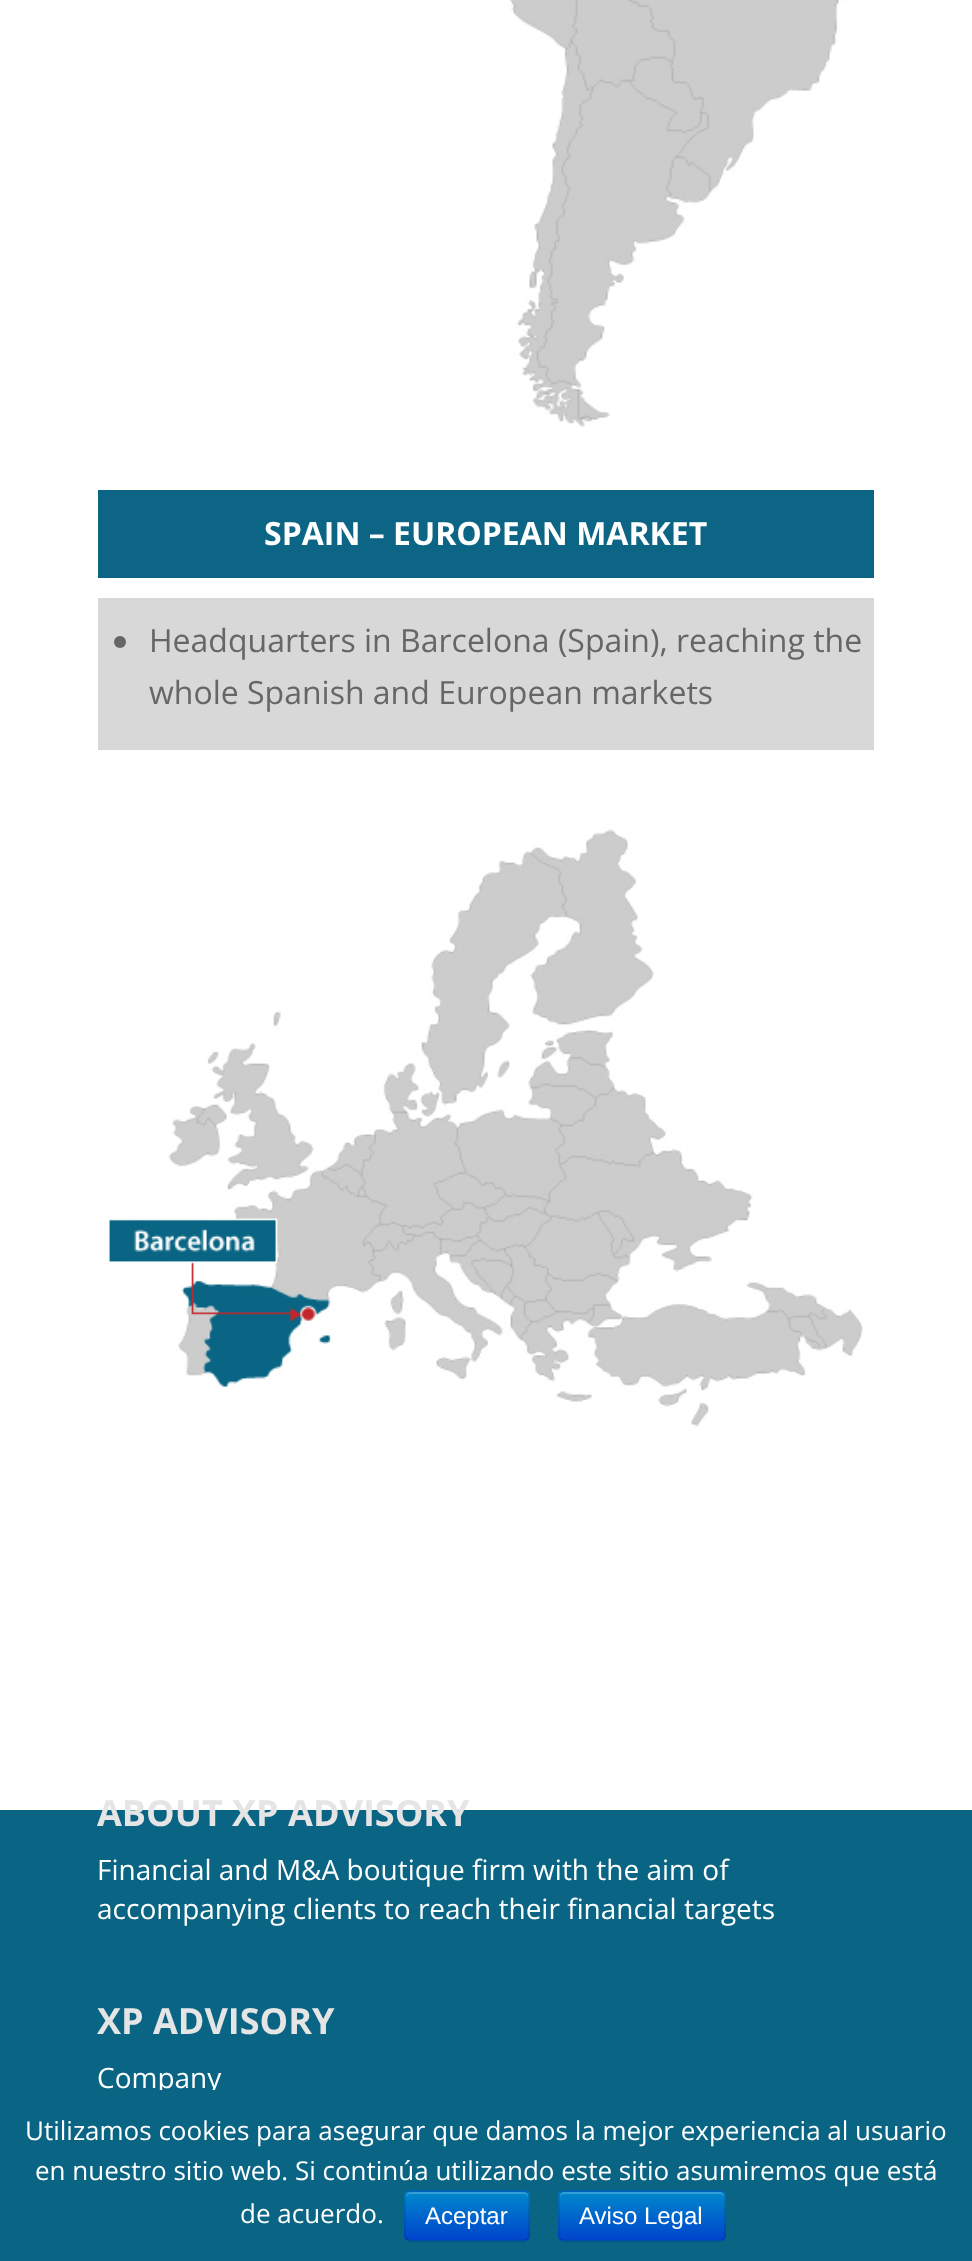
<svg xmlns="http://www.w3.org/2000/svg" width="972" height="2261">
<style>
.a{font:bold 32px Open Sans;fill:#fff}
.b{font:32px Open Sans;fill:#666}
.c{font:bold 36px Open Sans;fill:#e5e5e5}
.d{font:28px Open Sans;fill:#fff}
.e{font:26px Open Sans;fill:#fff}
.f{font:24px Liberation Sans;fill:#fff}
</style>
<defs>
<clipPath id="clip1"><rect x="404" y="2190" width="126" height="52" rx="6"/></clipPath>
<linearGradient id="g1" gradientUnits="userSpaceOnUse" x1="467" y1="2192" x2="467" y2="2240"><stop offset="0" stop-color="#08c"/><stop offset="1" stop-color="#04c"/></linearGradient>
<clipPath id="clip2"><rect x="558" y="2190" width="168" height="52" rx="6"/></clipPath>
<linearGradient id="g2" gradientUnits="userSpaceOnUse" x1="642" y1="2192" x2="642" y2="2240"><stop offset="0" stop-color="#08c"/><stop offset="1" stop-color="#04c"/></linearGradient>
</defs>
<rect width="100%" height="100%" fill="#0a6584"/>
<path fill="#fff" d="M0 0h972v1810H0z"/>
<image href="1.png" x="509" y="0" width="335" height="427"/>
<path fill="#0c6584" d="M98 490h776v88H98z"/>
<path fill="#d8d8d8" d="M98 598h776v152H98z"/>
<circle fill="#666" cx="120" cy="642" r="6"/>
<image href="2.png" x="109" y="829" width="754" height="598"/>
<rect fill="#006dcc" x="404" y="2190" width="126" height="52" rx="6"/>
<g clip-path="url(#clip1)">
<path fill="url(#g1)" d="M404 2192h126v48H404z"/>
</g>
<path fill="#ffffff33" d="M410 2194h114c2 0 4 2 4 4v-2c0-2-2-4-4-4h-114c-2 0-4 2-4 4v2c0-2 2-4 4-4z"/>
<path fill="none" stroke="#00000040" stroke-width="2" d="M527.5 2239.5l-3 1.5h-115l-3-1.5"/>
<path fill="none" stroke="#0000001a" stroke-width="2" d="M406.5 2239.5c-2.5-2.5-1.5-7.5-1.5-10v-13.5c0-28.5-5-25 24-25h76c29 0 24-3.5 24 25v13.5c0 2.5 1 7.5-1.5 10"/>
<rect fill="#006dcc" x="558" y="2190" width="168" height="52" rx="6"/>
<g clip-path="url(#clip2)">
<path fill="url(#g2)" d="M558 2192h168v48H558z"/>
</g>
<path fill="#ffffff33" d="M564 2194h156c2 0 4 2 4 4v-2c0-2-2-4-4-4h-156c-2 0-4 2-4 4v2c0-2 2-4 4-4z"/>
<path fill="none" stroke="#00000040" stroke-width="2" d="M723.5 2239.5c-1 1-2 1.5-3.5 1.5h-156c-1.5 0-2.5-.5-3.5-1.5"/>
<path fill="none" stroke="#0000001a" stroke-width="2" d="M560.5 2239.5c-1-1-1.5-2-1.5-3.5v-40c0-1.5 .5-2.5 1.5-3.5c1-1 2-1.5 3.5-1.5h156c1.5 0 2.5 .5 3.5 1.5c1 1 1.5 2 1.5 3.5v40c0 1.5-.5 2.5-1.5 3.5"/>
<text class="a" x="264" y="545">SPAIN – EUROPEAN MARKET</text>
<text class="b" x="149" y="652">Headquarters in Barcelona (Spain), reaching the</text>
<text class="b" x="149" y="704">whole Spanish and European markets</text>
<text class="c" x="97" y="1826">ABOUT XP ADVISORY</text>
<text class="d" x="97" y="1880">Financial and M&amp;A boutique firm with the aim of</text>
<text class="d" x="97" y="1919">accompanying clients to reach their financial targets</text>
<text class="c" x="97" y="2034">XP ADVISORY</text>
<text class="d" x="97" y="2088">Company</text>
<path fill="#0a6584" d="M159 2090h56v5H159z"/>
<text class="e" x="25" y="2140">Utilizamos cookies para asegurar que damos la mejor experiencia al usuario</text>
<text class="e" x="35" y="2180">en nuestro sitio web. Si continúa utilizando este sitio asumiremos que está</text>
<text class="e" x="240" y="2223">de acuerdo.</text>
<text class="f" x="425" y="2224">Aceptar</text>
<text class="f" x="579" y="2224">Aviso Legal</text>
</svg>
